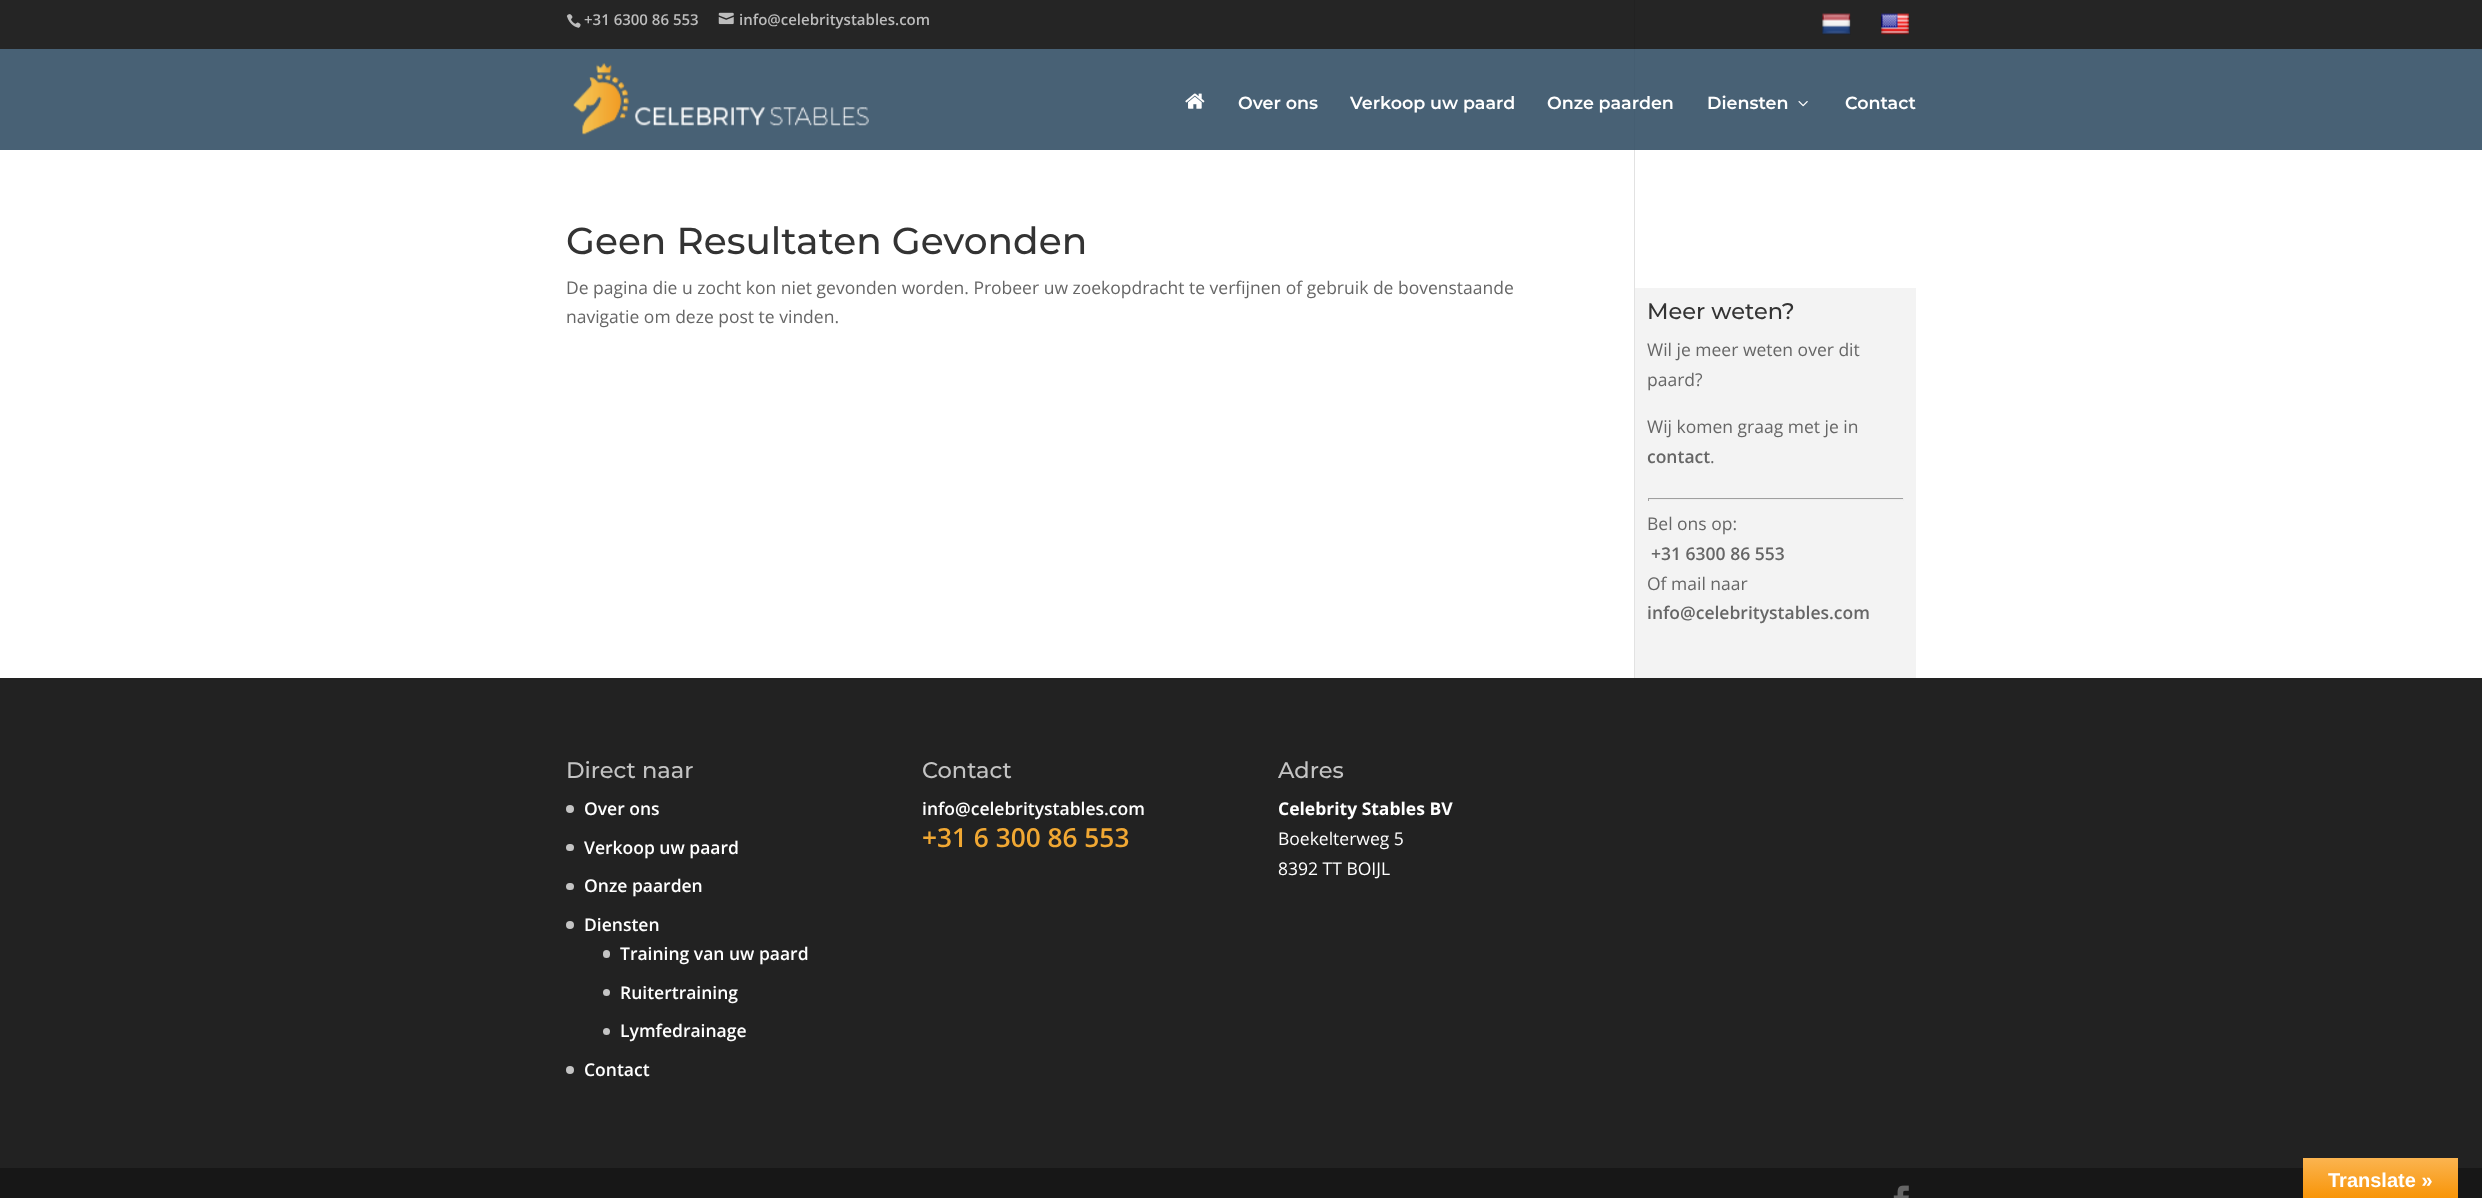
<svg xmlns="http://www.w3.org/2000/svg" width="2482" height="1198">
<style>
.a{font:600 15px Open Sans;fill:#bcbcbc}
.b{font:600 17.5px Montserrat;fill:#fff}
.c{font:500 37.5px Montserrat;fill:#333}
.d{font:17.5px Open Sans;fill:#666}
.e{font:500 22.5px Montserrat;fill:#333}
.f{font:600 17.5px Open Sans;fill:#666}
.g{font:500 22.5px Montserrat;fill:#c4c4c4}
.h{font:600 17.5px Open Sans;fill:#fff}
.i{font:600 26.25px Open Sans;fill:#f1a833}
.j{font:bold 17.5px Open Sans;fill:#fff}
.k{font:17.5px Open Sans;fill:#fff}
.l{font:bold 20px Liberation Sans;fill:#fff}
</style>
<defs>
<linearGradient id="g1" gradientUnits="userSpaceOnUse" x1="2380" y1="1158" x2="2380" y2="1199"><stop offset="0" stop-color="#fbb450"/><stop offset="1" stop-color="#f89406"/></linearGradient>
</defs>
<rect width="100%" height="100%" fill="#fff"/>
<path fill="#252525" d="M0 0h2482v49H0z"/>
<path fill="#486175" d="M0 49h2482v101H0z"/>
<image href="1.png" x="566" y="14" width="15" height="14"/>
<image href="2.png" x="718" y="12" width="16" height="13"/>
<image href="3.png" x="1822" y="13" width="29" height="22"/>
<image href="4.png" x="1881" y="13" width="28" height="22"/>
<image href="5.png" x="573" y="63" width="296" height="72"/>
<image href="6.png" x="1185" y="93" width="20" height="16"/>
<image href="7.png" x="1798" y="101" width="10" height="6"/>
<path fill="#e2e2e2" d="M1634 150h1v528H1634z"/>
<path fill="#222" d="M1634 0h1v49H1634z"/>
<path fill="#455e72" d="M1634 49h1v101H1634z"/>
<path fill="#f3f3f3" d="M1635 288h281v390H1635z"/>
<path fill="#9f9f9f" d="M1648 498h256v1H1648z"/>
<path fill="#eee" d="M1903 498h1v3H1903z"/>
<path fill="#eee" d="M1648 499h256v1H1648z"/>
<path fill="#9f9f9f" d="M1648 498h1v3H1648z"/>
<path fill="#222" d="M0 678h2482v490H0z"/>
<circle fill="#c4c4c4" cx="570" cy="809" r="4"/>
<rect fill="#c4c4c4" x="566" y="844" width="8" height="7" rx="3.5"/>
<rect fill="#c4c4c4" x="566" y="883" width="8" height="7" rx="3.5"/>
<circle fill="#c4c4c4" cx="570" cy="925" r="4"/>
<rect fill="#c4c4c4" x="603" y="950" width="7" height="8" rx="3.5"/>
<circle fill="#c4c4c4" cx="606.5" cy="992.5" r="3.5"/>
<circle fill="#c4c4c4" cx="606.5" cy="1031.5" r="3.5"/>
<circle fill="#c4c4c4" cx="570" cy="1070" r="4"/>
<path fill="#171717" d="M0 1168h2482v30H0z"/>
<image href="8.png" x="1893" y="1185" width="16" height="13"/>
<path fill="url(#g1)" d="M2303 1158h155v40H2303z"/>
<text class="a" x="584" y="25">+31 6300 86 553</text>
<text class="a" x="739" y="25">info@celebritystables.com</text>
<text class="b" x="1238" y="109">Over ons</text>
<text class="b" x="1350" y="109">Verkoop uw paard</text>
<text class="b" x="1547" y="109">Onze paarden</text>
<text class="b" x="1707" y="109">Diensten</text>
<text class="b" x="1845" y="109">Contact</text>
<text class="c" x="566" y="254">Geen Resultaten Gevonden</text>
<text class="d" x="566" y="294">De pagina die u zocht kon niet gevonden worden. Probeer uw zoekopdracht te verfijnen of gebruik de bovenstaande</text>
<text class="d" x="566" y="323">navigatie om deze post te vinden.</text>
<text class="e" x="1647" y="319">Meer weten?</text>
<text class="d" x="1647" y="356">Wil je meer weten over dit</text>
<text class="d" x="1647" y="386">paard?</text>
<text class="d" x="1647" y="433">Wij komen graag met je in</text>
<text class="f" x="1647" y="463">contact</text>
<text class="d" x="1710" y="463">.</text>
<text class="d" x="1647" y="530">Bel ons op:</text>
<text class="f" x="1651" y="560">+31 6300 86 553</text>
<text class="d" x="1647" y="590">Of mail naar</text>
<text class="f" x="1647" y="619">info@celebritystables.com</text>
<text class="g" x="566" y="778">Direct naar</text>
<text class="h" x="584" y="815">Over ons</text>
<text class="h" x="584" y="854">Verkoop uw paard</text>
<text class="h" x="584" y="892">Onze paarden</text>
<text class="h" x="584" y="931">Diensten</text>
<text class="h" x="620" y="960">Training van uw paard</text>
<text class="h" x="620" y="999">Ruitertraining</text>
<text class="h" x="620" y="1037">Lymfedrainage</text>
<text class="h" x="584" y="1076">Contact</text>
<text class="g" x="922" y="778">Contact</text>
<text class="h" x="922" y="815">info@celebritystables.com</text>
<text class="i" x="922" y="847">+31 6 300 86 553</text>
<text class="g" x="1278" y="778">Adres</text>
<text class="j" x="1278" y="815">Celebrity Stables BV</text>
<text class="k" x="1278" y="845">Boekelterweg 5</text>
<text class="k" x="1278" y="875">8392 TT BOIJL</text>
<text class="l" x="2328" y="1187">Translate »</text>
</svg>
